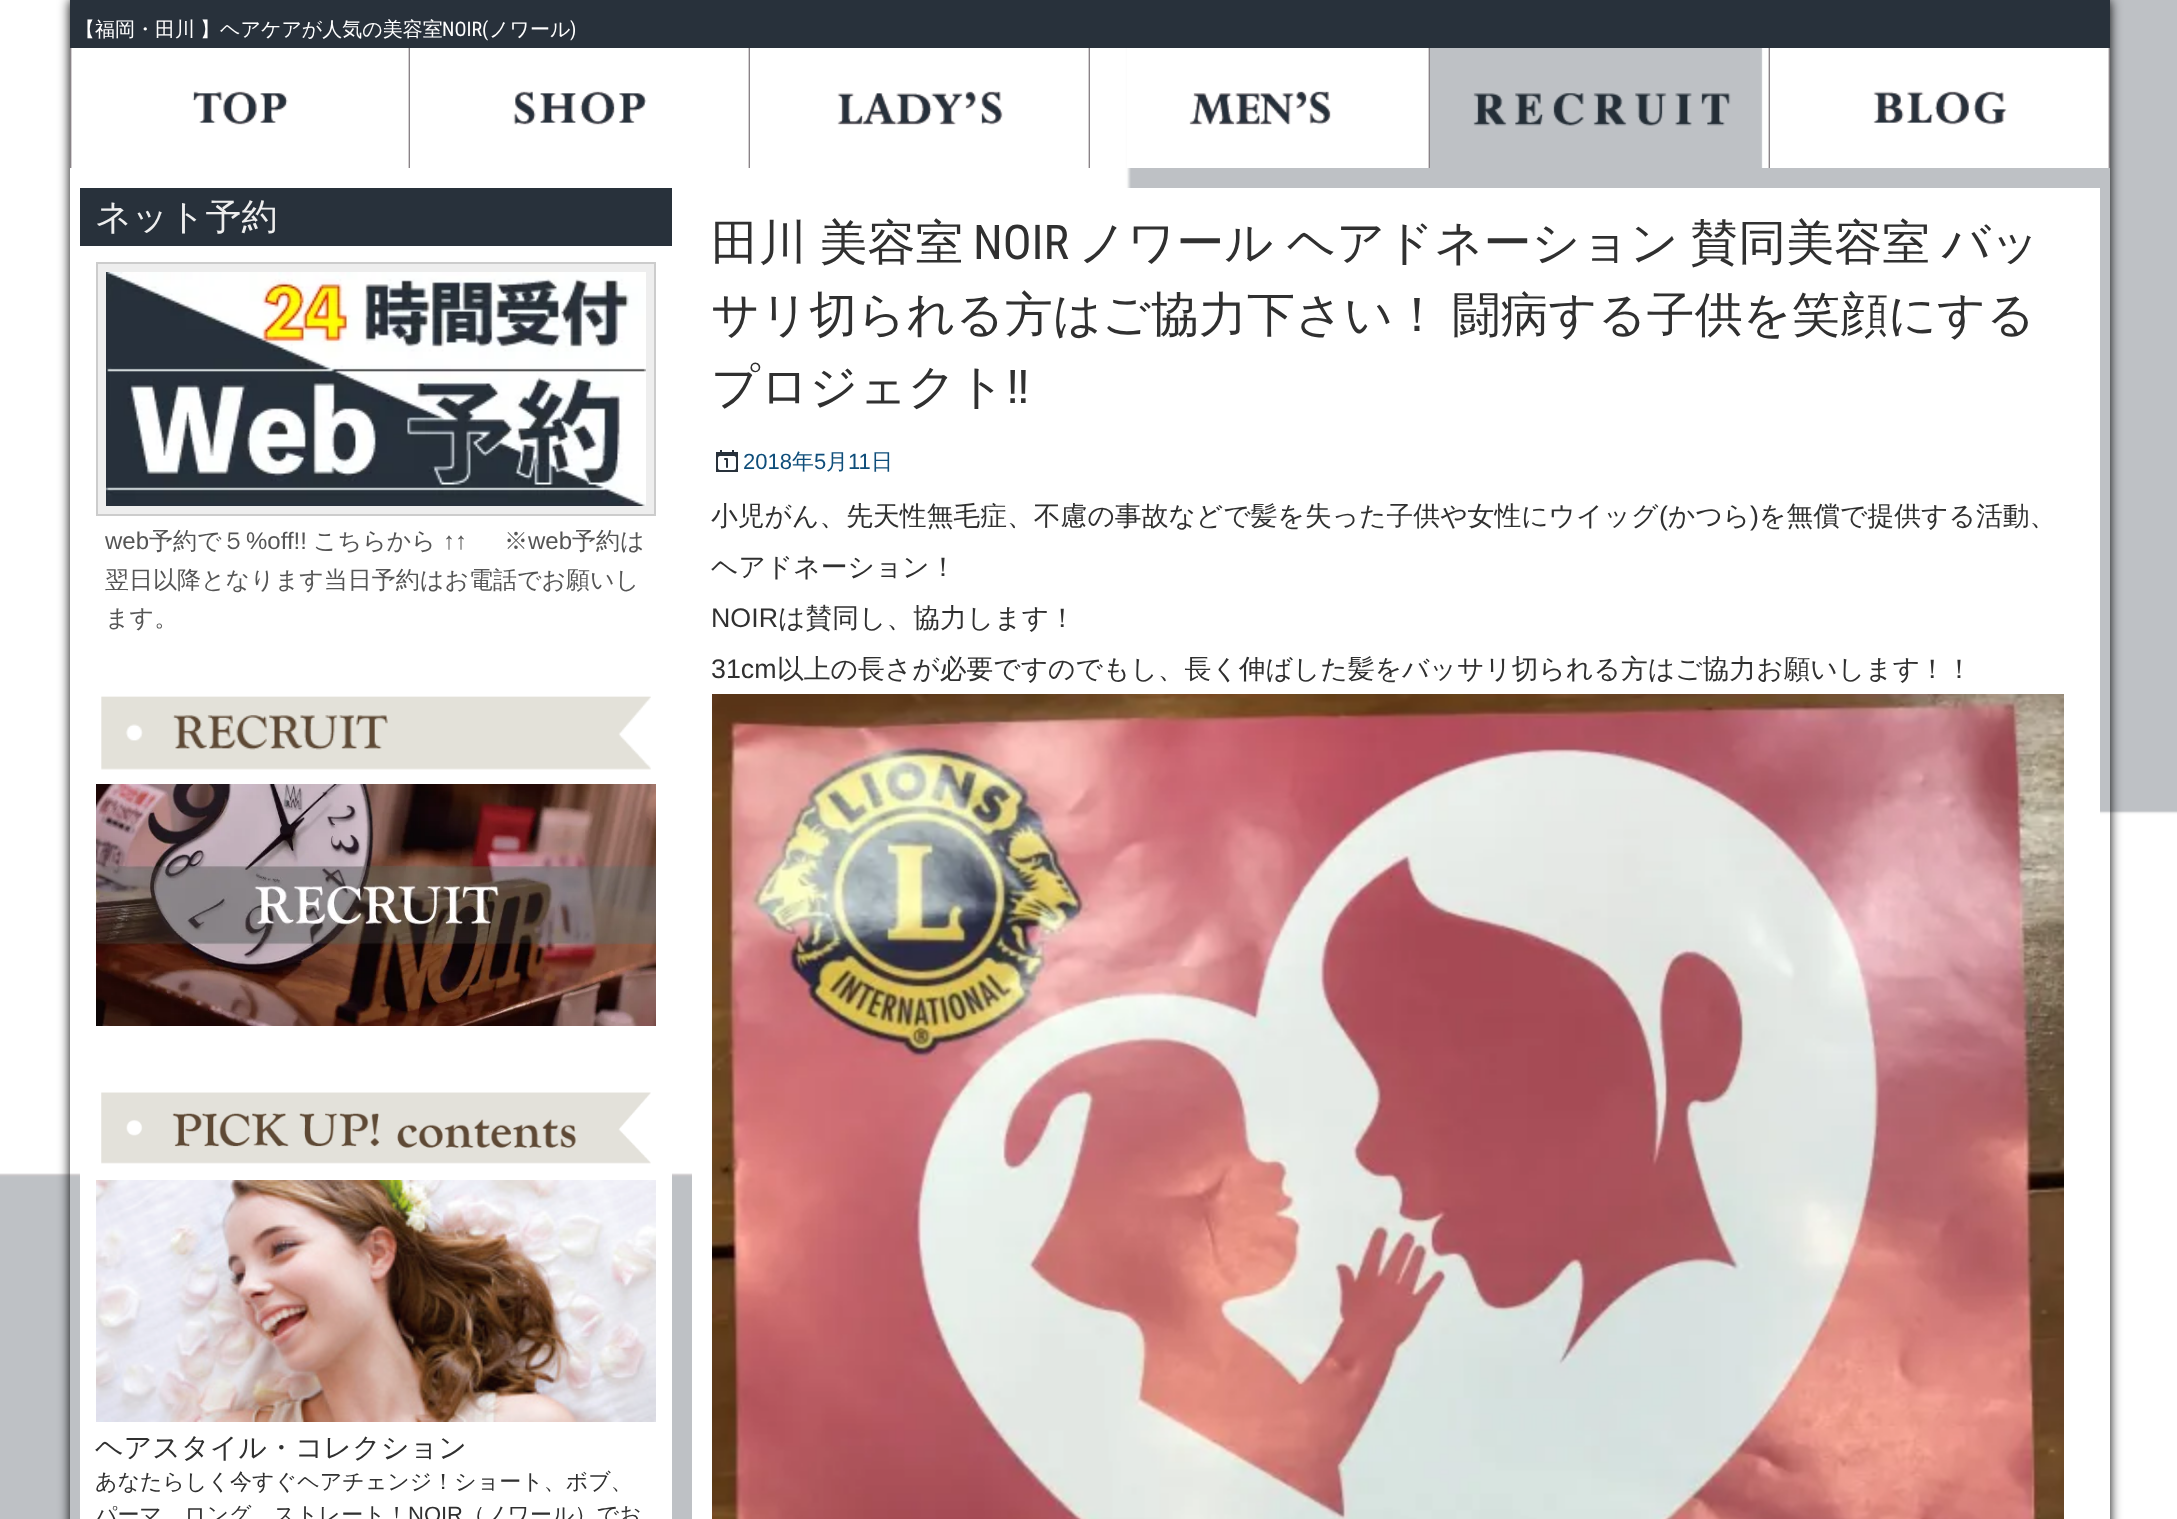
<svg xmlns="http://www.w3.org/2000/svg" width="2177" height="1519">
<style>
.a{font:500 20px WenQuanYi Zen Hei;fill:#fff}
.b{font:20px Roboto Condensed;fill:#fff}
.c{font:500 36px WenQuanYi Zen Hei;fill:#eee}
.d{font:24px Liberation Sans;fill:#555}
.e{font:500 24px WenQuanYi Zen Hei;fill:#555}
.f{font:500 28px WenQuanYi Zen Hei;fill:#303030}
.g{font:500 22px WenQuanYi Zen Hei;fill:#303030}
.h{font:22px Liberation Sans;fill:#303030}
.i{font:500 48px WenQuanYi Zen Hei;fill:#303030}
.j{font:48px Roboto Condensed;fill:#303030}
.k{font:48px Liberation Sans;fill:#303030}
.l{font:22px Liberation Sans;fill:#0e4d7a}
.m{font:500 22px WenQuanYi Zen Hei;fill:#0e4d7a}
.n{font:500 26.8px WenQuanYi Zen Hei;fill:#303030}
.o{font:26.8px Arimo;fill:#303030}
</style>
<defs>
<clipPath id="clip1"><path d="M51 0h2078v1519h-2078zm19 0h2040v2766h-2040z" clip-rule="evenodd"/></clipPath>
</defs>
<rect width="100%" height="100%" fill="#fff"/>
<image href="1.png" x="0" y="0" width="2177" height="1519"/>
<g clip-path="url(#clip1)">
<path fill="#000" filter="blur(6px)" d="M70 0h2040v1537H70z"/>
</g>
<path fill="#28313b" d="M70 0h2040v48H70z"/>
<image href="2.png" x="70" y="48" width="340" height="120"/>
<image href="3.png" x="513" y="48" width="237" height="120"/>
<image href="4.png" x="837" y="48" width="253" height="120"/>
<image href="5.png" x="1127" y="48" width="303" height="120"/>
<image href="6.png" x="1473" y="48" width="297" height="120"/>
<image href="7.png" x="1770" y="48" width="340" height="120"/>
<path fill="#28313b" d="M80 188h592v58H80z"/>
<path fill="#eee" stroke="#ccc" stroke-width="2" d="M97 263h558v252H97z"/>
<image href="8.png" x="106" y="272" width="540" height="234"/>
<path fill="#fff" d="M80 1173h592v346H80z"/>
<image href="9.png" x="101" y="696" width="550" height="74"/>
<image href="10.png" x="96" y="784" width="560" height="242"/>
<image href="11.png" x="101" y="1092" width="550" height="72"/>
<image href="12.png" x="96" y="1180" width="560" height="242"/>
<path fill="#fff" d="M692 188h1408v1331H692z"/>
<image href="13.png" x="716" y="450" width="22" height="22"/>
<image href="14.png" x="712" y="694" width="1352" height="825"/>
<text class="a" x="75" y="36" word-spacing="-1">【福岡・田川 】ヘアケアが人気の美容室</text>
<text class="b" x="442" y="36">NOIR(</text>
<text class="a" x="489" y="36">ノワール</text>
<text class="b" x="570" y="36">)</text>
<text class="c" x="95" y="229">ネット予約</text>
<text class="d" x="105" y="549">web</text>
<text class="e" x="149" y="549">予約で５</text>
<text class="d" x="246" y="549">%off!!</text>
<text class="e" x="313" y="549">こちらから</text>
<text class="d" x="443" y="549">↑↑</text>
<text class="e" x="504" y="549">※</text>
<text class="d" x="528" y="549">web</text>
<text class="e" x="572" y="549">予約は</text>
<text class="e" x="105" y="588">翌日以降となります当日予約はお電話でお願いし</text>
<text class="e" x="105" y="626">ます。</text>
<text class="f" x="95" y="1457">ヘアスタイル・コレクション</text>
<text class="g" x="95" y="1489">あなたらしく今すぐヘアチェンジ！ショート、ボブ、</text>
<text class="g" x="95" y="1522">パーマ、ロング、ストレート！</text>
<text class="h" x="408" y="1522">NOIR</text>
<text class="g" x="463" y="1522">（ノワール）でお</text>
<text class="i" x="711" y="259" word-spacing="-2">田川 美容室</text>
<text class="j" x="973" y="259">NOIR</text>
<text class="i" x="1078" y="259">ノワール</text>
<text class="i" x="1287" y="259" word-spacing="-3">ヘアドネーション 賛同美容室 バッ</text>
<text class="i" x="711" y="331" word-spacing="-3">サリ切られる方はご協力下さい！ 闘病する子供を笑顔にする</text>
<text class="i" x="711" y="403">プロジェクト</text>
<text class="k" x="1006" y="403">‼︎</text>
<text class="l" x="743" y="469">2018</text>
<text class="m" x="792" y="469">年</text>
<text class="l" x="814" y="469">5</text>
<text class="m" x="826" y="469">月</text>
<text class="l" x="848" y="469">11</text>
<text class="m" x="871" y="469">日</text>
<text class="n" x="711" y="525">小児がん、先天性無毛症、不慮の事故などで髪を失った子供や女性にウイッグ</text>
<text class="o" x="1659" y="525">(</text>
<text class="n" x="1668" y="525">かつら</text>
<text class="o" x="1750" y="525">)</text>
<text class="n" x="1759" y="525">を無償で提供する活動、</text>
<text class="n" x="711" y="576">ヘアドネーション！</text>
<text class="o" x="711" y="627">NOIR</text>
<text class="n" x="778" y="627">は賛同し、協力します！</text>
<text class="o" x="711" y="678">31cm</text>
<text class="n" x="777" y="678">以上の長さが必要ですのでもし、長く伸ばした髪をバッサリ切られる方はご協力お願いします</text>
<text class="n" x="1919" y="678">！！</text>
</svg>
